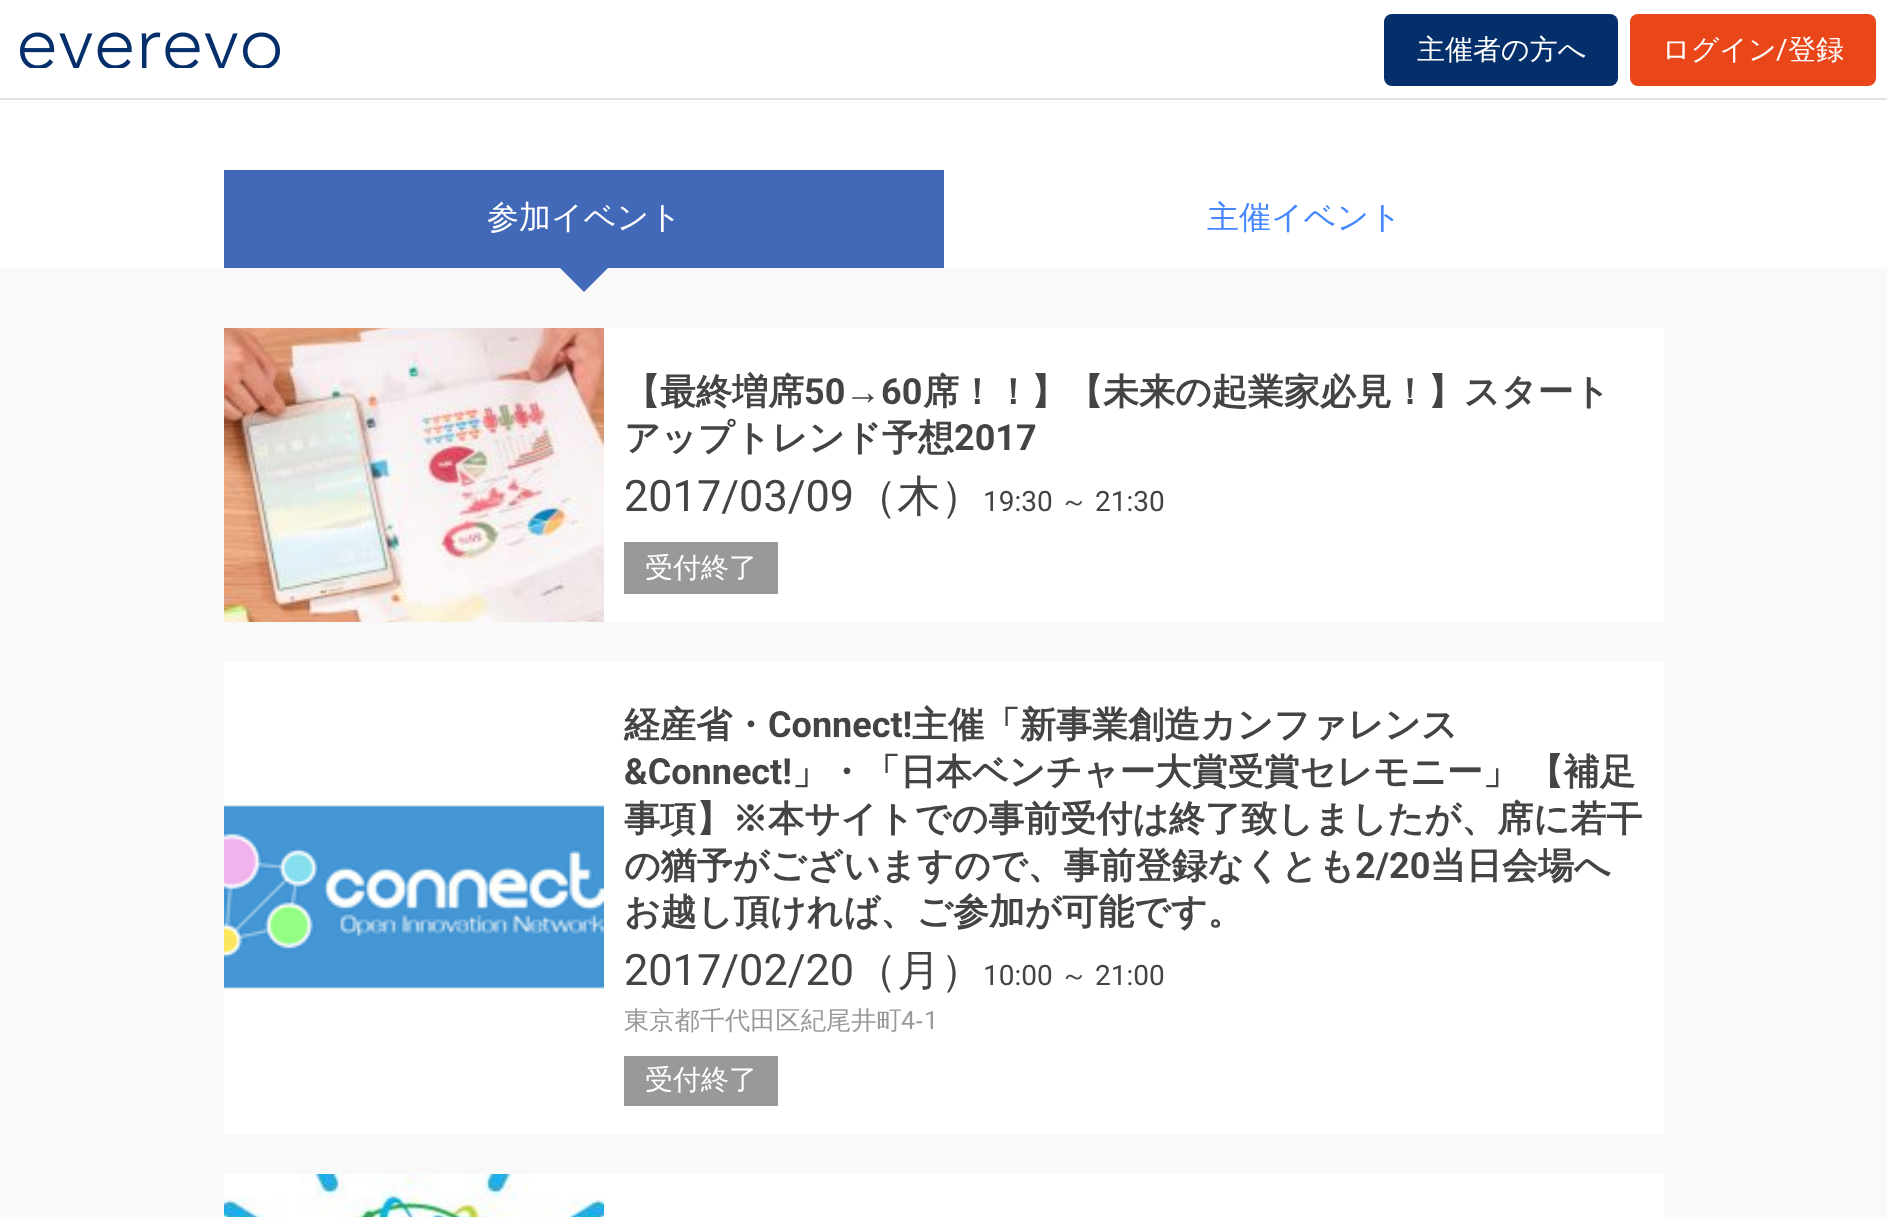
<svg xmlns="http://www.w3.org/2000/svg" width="1887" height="1217">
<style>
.a{font:500 28px WenQuanYi Zen Hei;fill:#fff}
.b{font:28px Roboto;fill:#fff}
.c{font:500 32px WenQuanYi Zen Hei;fill:#fff}
.d{font:500 32px WenQuanYi Zen Hei;fill:#4686ff}
.e{font:bold 36px WenQuanYi Zen Hei;fill:#444}
.f{font:bold 36px Roboto;fill:#444}
.g{font:bold 36px Liberation Sans;fill:#444}
.h{font:43.25px Roboto;fill:#444}
.i{font:500 43.25px WenQuanYi Zen Hei;fill:#444}
.j{font:28px Roboto;fill:#444}
.k{font:500 28px WenQuanYi Zen Hei;fill:#444}
.l{font:500 25.25px WenQuanYi Zen Hei;fill:#999}
.m{font:25.25px Roboto;fill:#999}
.n{font:25.25px Liberation Sans;fill:#999}
</style>
<rect width="100%" height="100%" fill="#fff"/>
<path fill="#e1e1e1" d="M0 98h1887v2H0z"/>
<image href="1.png" x="20" y="32" width="260" height="36"/>
<rect fill="#052f6b" x="1384" y="14" width="234" height="72" rx="8"/>
<rect fill="#e94619" x="1630" y="14" width="246" height="72" rx="8"/>
<path fill="#f9f9f9" d="M0 268h1887v949H0z"/>
<path fill="#4169b8" d="M224 170h720v98H224z"/>
<path fill="#4169b8" d="M560 268h48l-24 24z"/>
<path fill="#fff" d="M604 328h1060v294H604z"/>
<image href="2.png" x="224" y="328" width="380" height="294"/>
<path fill="#999" d="M624 542h154v52H624z"/>
<path fill="#fff" d="M224 662h1440v472H224z"/>
<image href="3.png" x="224" y="805" width="380" height="186"/>
<path fill="#999" d="M624 1056h154v50H624z"/>
<path fill="#fff" d="M604 1174h1060v43H604z"/>
<image href="4.png" x="224" y="1174" width="380" height="43"/>
<text class="a" x="1417" y="59">主催者の方へ</text>
<text class="a" x="1662" y="59">ログイン</text>
<text class="b" x="1776" y="59">/</text>
<text class="a" x="1788" y="59">登録</text>
<text class="c" x="487" y="228">参加イベント</text>
<text class="d" x="1207" y="228">主催イベント</text>
<text class="e" x="624" y="404">【最終増席</text>
<text class="f" x="804" y="404">50</text>
<text class="g" x="845" y="404">→</text>
<text class="f" x="881" y="404">60</text>
<text class="e" x="923" y="404">席！！】【未来の起業家必見！】スタート</text>
<text class="e" x="624" y="450">アップトレンド予想</text>
<text class="f" x="954" y="450">2017</text>
<text class="h" x="624" y="511">2017/03/09</text>
<text class="i" x="854" y="511">（木）</text>
<text class="j" x="983" y="511">19:30</text>
<text class="k" x="1060" y="511">～</text>
<text class="j" x="1095" y="511">21:30</text>
<text class="a" x="645" y="577">受付終了</text>
<text class="e" x="624" y="737">経産省・</text>
<text class="f" x="768" y="737">Connect!</text>
<text class="e" x="912" y="737">主催「新事業創造カンファレンス</text>
<text class="f" x="624" y="784">&amp;Connect!</text>
<text class="e" x="792" y="784" word-spacing="-2">」・「日本ベンチャー大賞受賞セレモニー」 【補足</text>
<text class="e" x="624" y="831">事項】※本サイトでの事前受付は終了致しましたが、席に若干</text>
<text class="e" x="624" y="878">の猶予がございますので、事前登録なくとも</text>
<text class="f" x="1355" y="878">2/20</text>
<text class="e" x="1430" y="878">当日会場へ</text>
<text class="e" x="624" y="924">お越し頂ければ、ご参加が可能です。</text>
<text class="h" x="624" y="985">2017/02/20</text>
<text class="i" x="854" y="985">（月）</text>
<text class="j" x="983" y="985">10:00</text>
<text class="k" x="1060" y="985">～</text>
<text class="j" x="1095" y="985">21:00</text>
<text class="l" x="624" y="1029">東京都千代田区紀尾井町</text>
<text class="m" x="901" y="1029">4</text>
<text class="n" x="915" y="1029">‐</text>
<text class="m" x="924" y="1029">1</text>
<text class="a" x="645" y="1089">受付終了</text>
</svg>
